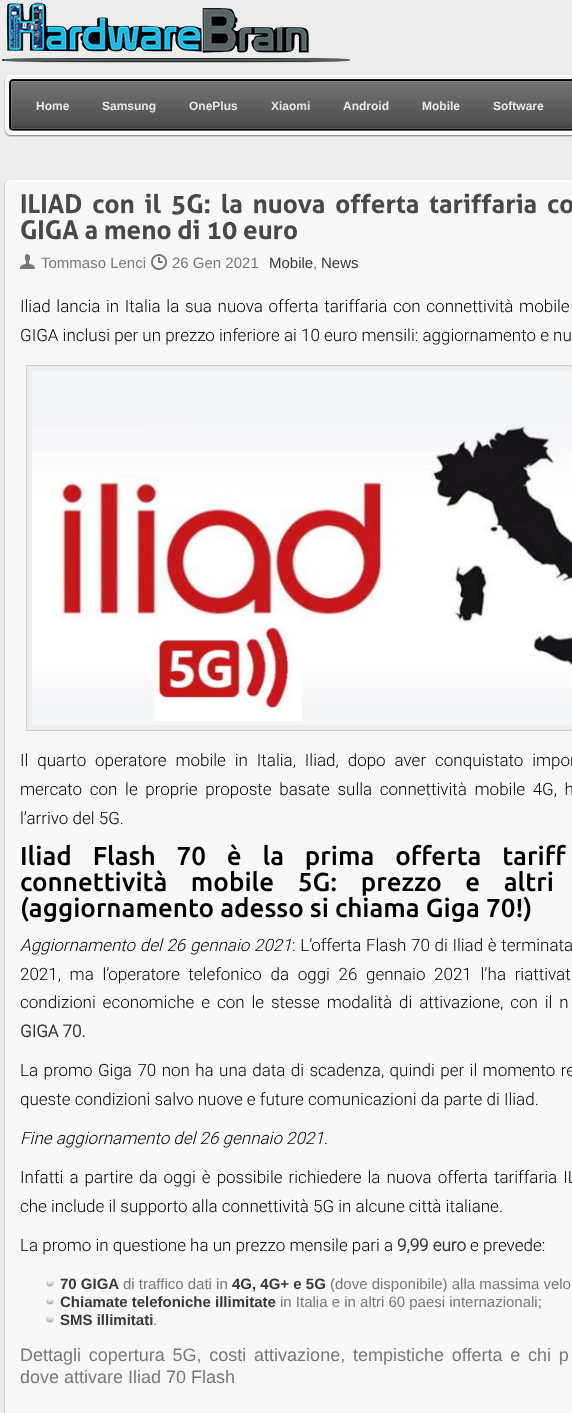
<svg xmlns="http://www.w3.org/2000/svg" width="572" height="1413">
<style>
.a{font:bold 12px Liberation Sans;fill:#e7e7e7}
.b{font:bold 26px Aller;fill:#484848}
.c{font:15px Liberation Sans;fill:#787878}
.d{font:15px Liberation Sans;fill:#383838}
.e{font:300 17px Roboto;fill:#000}
.f{font:500 26px Ubuntu;fill:#000}
.g{font:italic 300 17px Roboto;fill:#000}
.h{font:bold 17px Roboto;fill:#383838}
.i{font:bold 15px Liberation Sans;fill:#383838}
.j{font:18px Liberation Sans;fill:#787878}
</style>
<rect width="100%" height="100%" fill="#ececec"/>
<image href="1.png" x="1" y="2" width="349" height="61"/>
<image href="2.png" x="4" y="75" width="568" height="62"/>
<image href="3.png" x="4" y="180" width="568" height="7"/>
<image href="4.png" x="4" y="187" width="568" height="1226"/>
<image href="5.png" x="20" y="254" width="15" height="15"/>
<image href="6.png" x="151" y="254" width="16" height="16"/>
<path fill="#eee" stroke="#ccc" d="M26.5 365.5h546v365H26.5z"/>
<image href="7.png" x="32" y="371" width="540" height="354"/>
<image href="8.png" x="46" y="1279" width="8" height="8"/>
<image href="8.png" x="46" y="1297" width="8" height="8"/>
<image href="8.png" x="46" y="1315" width="8" height="8"/>
<text class="a" x="36" y="110">Home</text>
<text class="a" x="102" y="110">Samsung</text>
<text class="a" x="189" y="110">OnePlus</text>
<text class="a" x="271" y="110">Xiaomi</text>
<text class="a" x="343" y="110">Android</text>
<text class="a" x="422" y="110">Mobile</text>
<text class="a" x="493" y="110">Software</text>
<text class="b" x="20" y="213" word-spacing="4">ILIAD con il 5G: la nuova offerta tariffaria co</text>
<text class="b" x="20" y="239">GIGA a meno di 10 euro</text>
<text class="c" x="41" y="268">Tommaso Lenci</text>
<text class="c" x="172" y="268">26 Gen 2021</text>
<text class="d" x="269" y="268">Mobile</text>
<text class="c" x="313" y="268">,</text>
<text class="d" x="321" y="268">News</text>
<text class="e" x="20" y="312" word-spacing="1.5">Iliad lancia in Italia la sua nuova offerta tariffaria con connettività mobile</text>
<text class="e" x="20" y="341">GIGA inclusi per un prezzo inferiore ai 10 euro mensili: aggiornamento e nu</text>
<text class="e" x="20" y="766" word-spacing="4.75">Il quarto operatore mobile in Italia, Iliad, dopo aver conquistato impor</text>
<text class="e" x="20" y="795" word-spacing="3.5">mercato con le proprie proposte basate sulla connettività mobile 4G, h</text>
<text class="e" x="20" y="824">l’arrivo del 5G.</text>
<text class="f" x="20" y="865" word-spacing="14.75">Iliad Flash 70 è la prima offerta tariff</text>
<text class="f" x="20" y="891" word-spacing="17.5">connettività mobile 5G: prezzo e altri</text>
<text class="f" x="20" y="917">(aggiornamento adesso si chiama Giga 70!)</text>
<text class="g" x="20" y="951" word-spacing="0.5">Aggiornamento del 26 gennaio 2021</text>
<text class="e" x="292" y="951" word-spacing="0.5">: L’offerta Flash 70 di Iliad è terminata</text>
<text class="e" x="20" y="980" word-spacing="4.5">2021, ma l’operatore telefonico da oggi 26 gennaio 2021 l’ha riattivat</text>
<text class="e" x="20" y="1008" word-spacing="2.75">condizioni economiche e con le stesse modalità di attivazione, con il n</text>
<text class="h" x="20" y="1037">GIGA 70.</text>
<text class="e" x="20" y="1076" word-spacing="1.25">La promo Giga 70 non ha una data di scadenza, quindi per il momento re</text>
<text class="e" x="20" y="1105">queste condizioni salvo nuove e future comunicazioni da parte di Iliad.</text>
<text class="g" x="20" y="1144">Fine aggiornamento del 26 gennaio 2021.</text>
<text class="e" x="20" y="1183" word-spacing="1.9">Infatti a partire da oggi è possibile richiedere la nuova offerta tariffaria IL</text>
<text class="e" x="20" y="1212">che include il supporto alla connettività 5G in alcune città italiane.</text>
<text class="e" x="20" y="1251">La promo in questione ha un prezzo mensile pari a</text>
<text class="h" x="397" y="1251">9,99 euro</text>
<text class="e" x="470" y="1251">e prevede:</text>
<text class="i" x="60" y="1289">70 GIGA</text>
<text class="c" x="123" y="1289">di traffico dati in</text>
<text class="i" x="232" y="1289">4G, 4G+ e 5G</text>
<text class="c" x="330" y="1289">(dove disponibile) alla massima velo</text>
<text class="i" x="60" y="1307">Chiamate telefoniche illimitate</text>
<text class="c" x="280" y="1307">in Italia e in altri 60 paesi internazionali;</text>
<text class="i" x="60" y="1325">SMS illimitati</text>
<text class="c" x="153" y="1325">.</text>
<text class="j" x="20" y="1361" word-spacing="2.75">Dettagli copertura 5G, costi attivazione, tempistiche offerta e chi p</text>
<text class="j" x="20" y="1383">dove attivare Iliad 70 Flash</text>
</svg>
